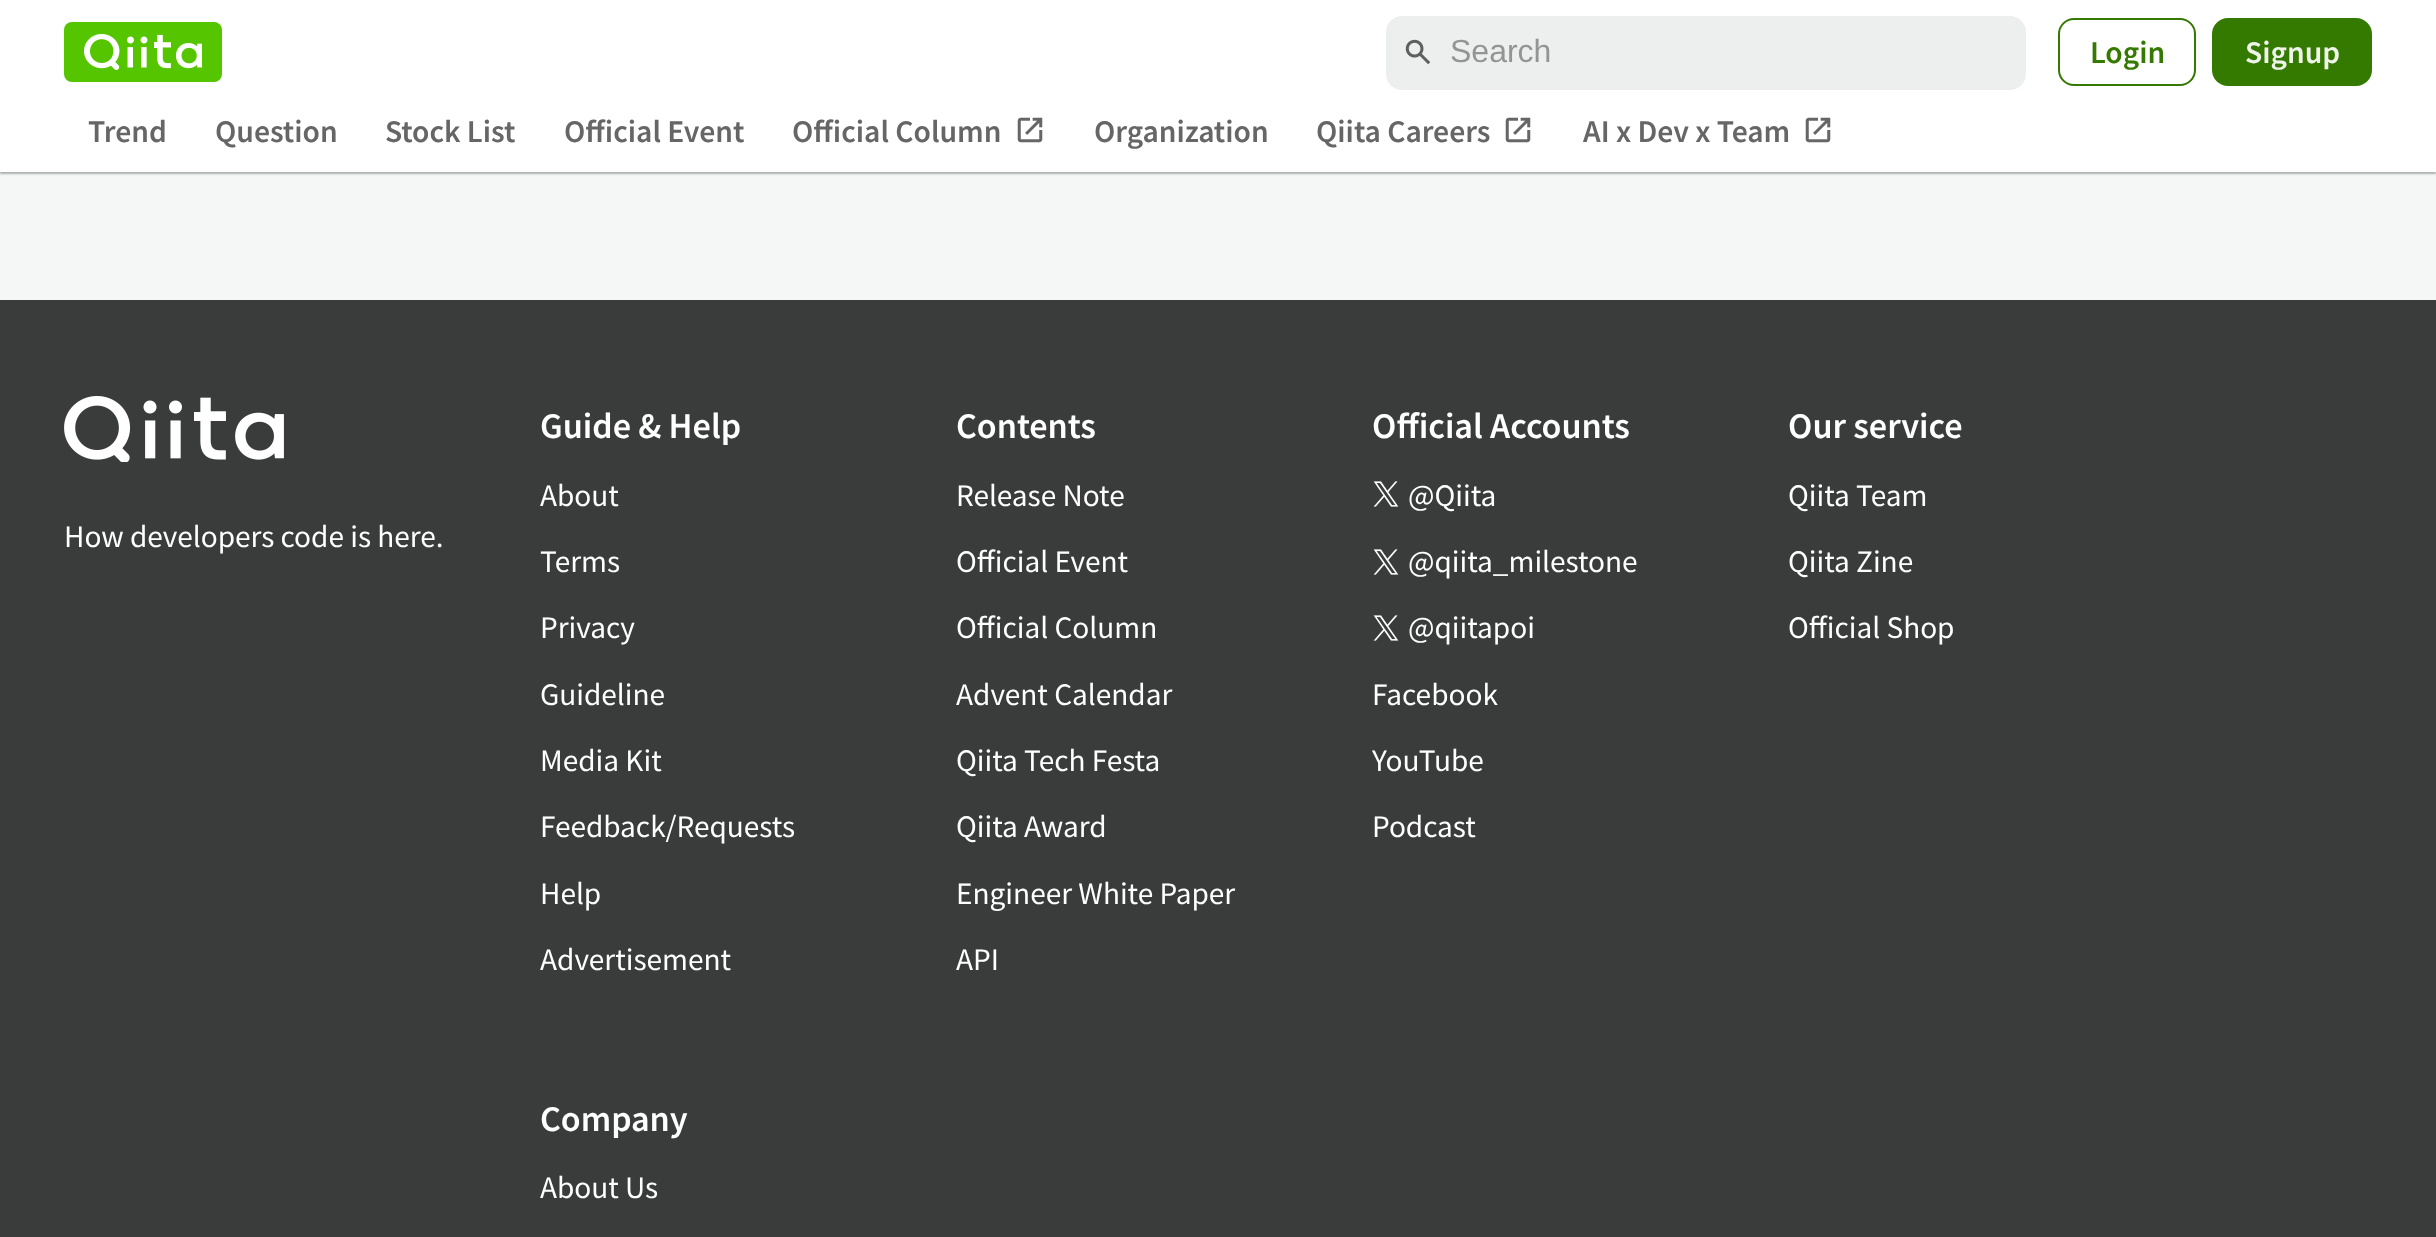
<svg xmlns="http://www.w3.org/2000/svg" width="2436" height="1237">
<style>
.a{font:32px Liberation Sans;fill:#939494}
.b{font:600 28px Noto Sans JP;fill:#357a00}
.c{font:600 28px Noto Sans JP;fill:#eff4eb}
.d{font:600 28px Noto Sans JP;fill:#666}
.e{font:28px Noto Sans JP;fill:#fff}
.f{font:600 32px Noto Sans JP;fill:#fff}
</style>
<rect width="100%" height="100%" fill="#f5f6f6"/>
<path fill="none" stroke="#e1e2e2" stroke-width="2" d="M-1 -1h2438v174H-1z"/>
<path fill="#1e212140" filter="blur(1px)" d="M0 2h2436v172H0z"/>
<path fill="#fff" d="M0 0h2436v172H0z"/>
<rect fill="#55c500" x="64" y="22" width="158" height="60" rx="8"/>
<image href="1.png" x="84" y="34" width="118" height="36"/>
<rect fill="#edeeee" x="1386" y="16" width="640" height="74" rx="16"/>
<image href="2.png" x="1405" y="39" width="26" height="26"/>
<rect fill="none" stroke="#357a00" stroke-width="2" x="2059" y="19" width="136" height="66" rx="15"/>
<rect fill="#357a00" x="2212" y="18" width="160" height="68" rx="16"/>
<image href="3.png" x="1017" y="117" width="26" height="26"/>
<image href="3.png" x="1505" y="117" width="26" height="26"/>
<image href="3.png" x="1805" y="117" width="26" height="26"/>
<path fill="#3a3c3c" d="M0 300h2436v937H0z"/>
<image href="4.png" x="64" y="396" width="220" height="66"/>
<image href="5.png" x="1373" y="481" width="26" height="26"/>
<image href="5.png" x="1373" y="549" width="26" height="26"/>
<image href="5.png" x="1373" y="615" width="26" height="26"/>
<text class="a" x="1450" y="62">Search</text>
<text class="b" x="2090" y="63">Login</text>
<text class="c" x="2245" y="63">Signup</text>
<text class="d" x="88" y="142">Trend</text>
<text class="d" x="215" y="142">Question</text>
<text class="d" x="385" y="142">Stock List</text>
<text class="d" x="564" y="142">Official Event</text>
<text class="d" x="792" y="142">Official Column</text>
<text class="d" x="1094" y="142">Organization</text>
<text class="d" x="1316" y="142">Qiita Careers</text>
<text class="d" x="1583" y="142">AI x Dev x Team</text>
<text class="e" x="64" y="547">How developers code is here.</text>
<text class="f" x="540" y="438">Guide &amp; Help</text>
<text class="e" x="540" y="506">About</text>
<text class="e" x="540" y="572">Terms</text>
<text class="e" x="540" y="638">Privacy</text>
<text class="e" x="540" y="705">Guideline</text>
<text class="e" x="540" y="771">Media Kit</text>
<text class="e" x="540" y="837">Feedback/Requests</text>
<text class="e" x="540" y="904">Help</text>
<text class="e" x="540" y="970">Advertisement</text>
<text class="f" x="956" y="438">Contents</text>
<text class="e" x="956" y="506">Release Note</text>
<text class="e" x="956" y="572">Official Event</text>
<text class="e" x="956" y="638">Official Column</text>
<text class="e" x="956" y="705">Advent Calendar</text>
<text class="e" x="956" y="771">Qiita Tech Festa</text>
<text class="e" x="956" y="837">Qiita Award</text>
<text class="e" x="956" y="904">Engineer White Paper</text>
<text class="e" x="956" y="970">API</text>
<text class="f" x="1372" y="438">Official Accounts</text>
<text class="e" x="1408" y="506">@Qiita</text>
<text class="e" x="1408" y="572">@qiita_milestone</text>
<text class="e" x="1408" y="638">@qiitapoi</text>
<text class="e" x="1372" y="705">Facebook</text>
<text class="e" x="1372" y="771">YouTube</text>
<text class="e" x="1372" y="837">Podcast</text>
<text class="f" x="1788" y="438">Our service</text>
<text class="e" x="1788" y="506">Qiita Team</text>
<text class="e" x="1788" y="572">Qiita Zine</text>
<text class="e" x="1788" y="638">Official Shop</text>
<text class="f" x="540" y="1131">Company</text>
<text class="e" x="540" y="1198">About Us</text>
</svg>
